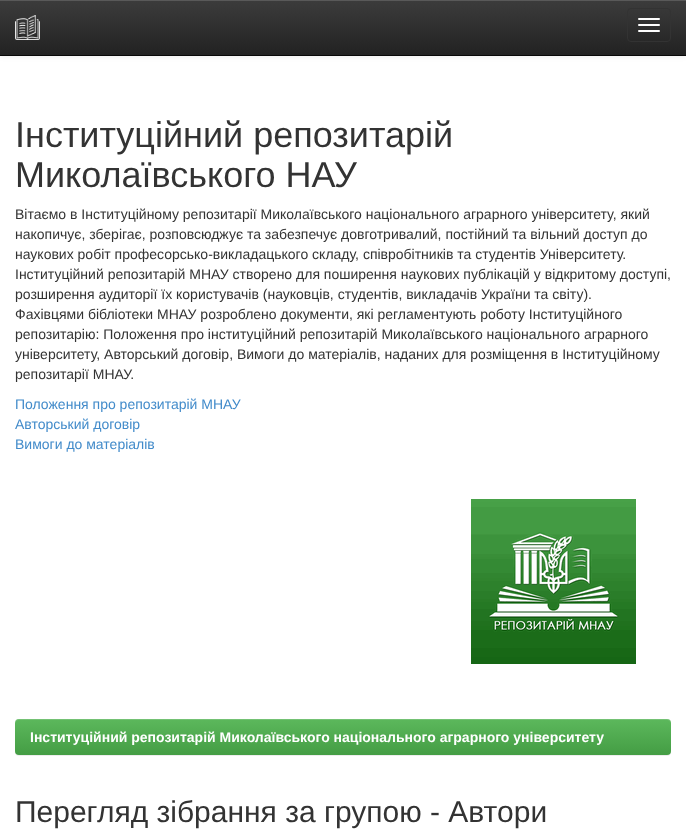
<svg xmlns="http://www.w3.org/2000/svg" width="686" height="836">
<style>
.a{font:36px Liberation Sans;fill:#333}
.b{font:14px Liberation Sans;fill:#333}
.c{font:14px Liberation Sans;fill:#428bca}
.d{font:bold 14px Liberation Sans;fill:#fff}
.e{font:30px Liberation Sans;fill:#333}
</style>
<defs>
<linearGradient id="g1" gradientUnits="userSpaceOnUse" x1="343" y1="0" x2="343" y2="55"><stop offset="0" stop-color="#3c3c3c"/><stop offset="1" stop-color="#222"/></linearGradient>
<linearGradient id="g2" gradientUnits="userSpaceOnUse" x1="343" y1="719" x2="343" y2="755"><stop offset="0" stop-color="#5cb85c"/><stop offset="1" stop-color="#449d44"/></linearGradient>
</defs>
<rect width="100%" height="100%" fill="#fff"/>
<path fill="#00000012" filter="blur(2.5px)" d="M0 1h686v56H0z"/>
<path fill="url(#g1)" d="M0 1h686v54H0z"/>
<path fill="#595959" d="M0 0h686v1H0z"/>
<path fill="#080808" d="M0 55h686v1H0z"/>
<image href="1.png" x="15" y="15" width="25" height="25"/>
<rect fill="none" stroke="#333" x="627.5" y="8.5" width="43" height="33" rx="3.5"/>
<rect fill="#fff" x="638" y="18" width="22" height="2" rx="1"/>
<rect fill="#fff" x="638" y="24" width="22" height="2" rx="1"/>
<rect fill="#fff" x="638" y="30" width="22" height="2" rx="1"/>
<image href="2.png" x="471" y="499" width="165" height="165"/>
<rect fill="#00000012" filter="blur(0.5px)" x="15" y="720" width="656" height="36" rx="4"/>
<rect fill="url(#g2)" x="15" y="719" width="656" height="36" rx="4"/>
<path fill="#ffffff26" d="M19 720h648c2 0 4 2 4 4c0-3-1-5-4-5h-648l-3 1l-1 1v3c0-2 2-4 4-4z"/>
<text class="a" x="15" y="147">Інституційний репозитарій</text>
<text class="a" x="15" y="187">Миколаївського НАУ</text>
<text class="b" x="15" y="219">Вітаємо в Інституційному репозитарії Миколаївського національного аграрного університету, який</text>
<text class="b" x="15" y="239">накопичує, зберігає, розповсюджує та забезпечує довготривалий, постійний та вільний доступ до</text>
<text class="b" x="15" y="259">наукових робіт професорсько-викладацького складу, співробітників та студентів Університету.</text>
<text class="b" x="15" y="279">Інституційний репозитарій МНАУ створено для поширення наукових публікацій у відкритому доступі,</text>
<text class="b" x="15" y="299">розширення аудиторії їх користувачів (науковців, студентів, викладачів України та світу).</text>
<text class="b" x="15" y="319">Фахівцями бібліотеки МНАУ розроблено документи, які регламентують роботу Інституційного</text>
<text class="b" x="15" y="339">репозитарію: Положення про інституційний репозитарій Миколаївського національного аграрного</text>
<text class="b" x="15" y="359">університету, Авторський договір, Вимоги до матеріалів, наданих для розміщення в Інституційному</text>
<text class="b" x="15" y="379">репозитарії МНАУ.</text>
<text class="c" x="15" y="409">Положення про репозитарій МНАУ</text>
<text class="c" x="15" y="429">Авторський договір</text>
<text class="c" x="15" y="449">Вимоги до матеріалів</text>
<text class="d" x="30" y="742">Інституційний репозитарій Миколаївського національного аграрного університету</text>
<text class="e" x="15" y="822">Перегляд зібрання за групою - Автори</text>
</svg>
